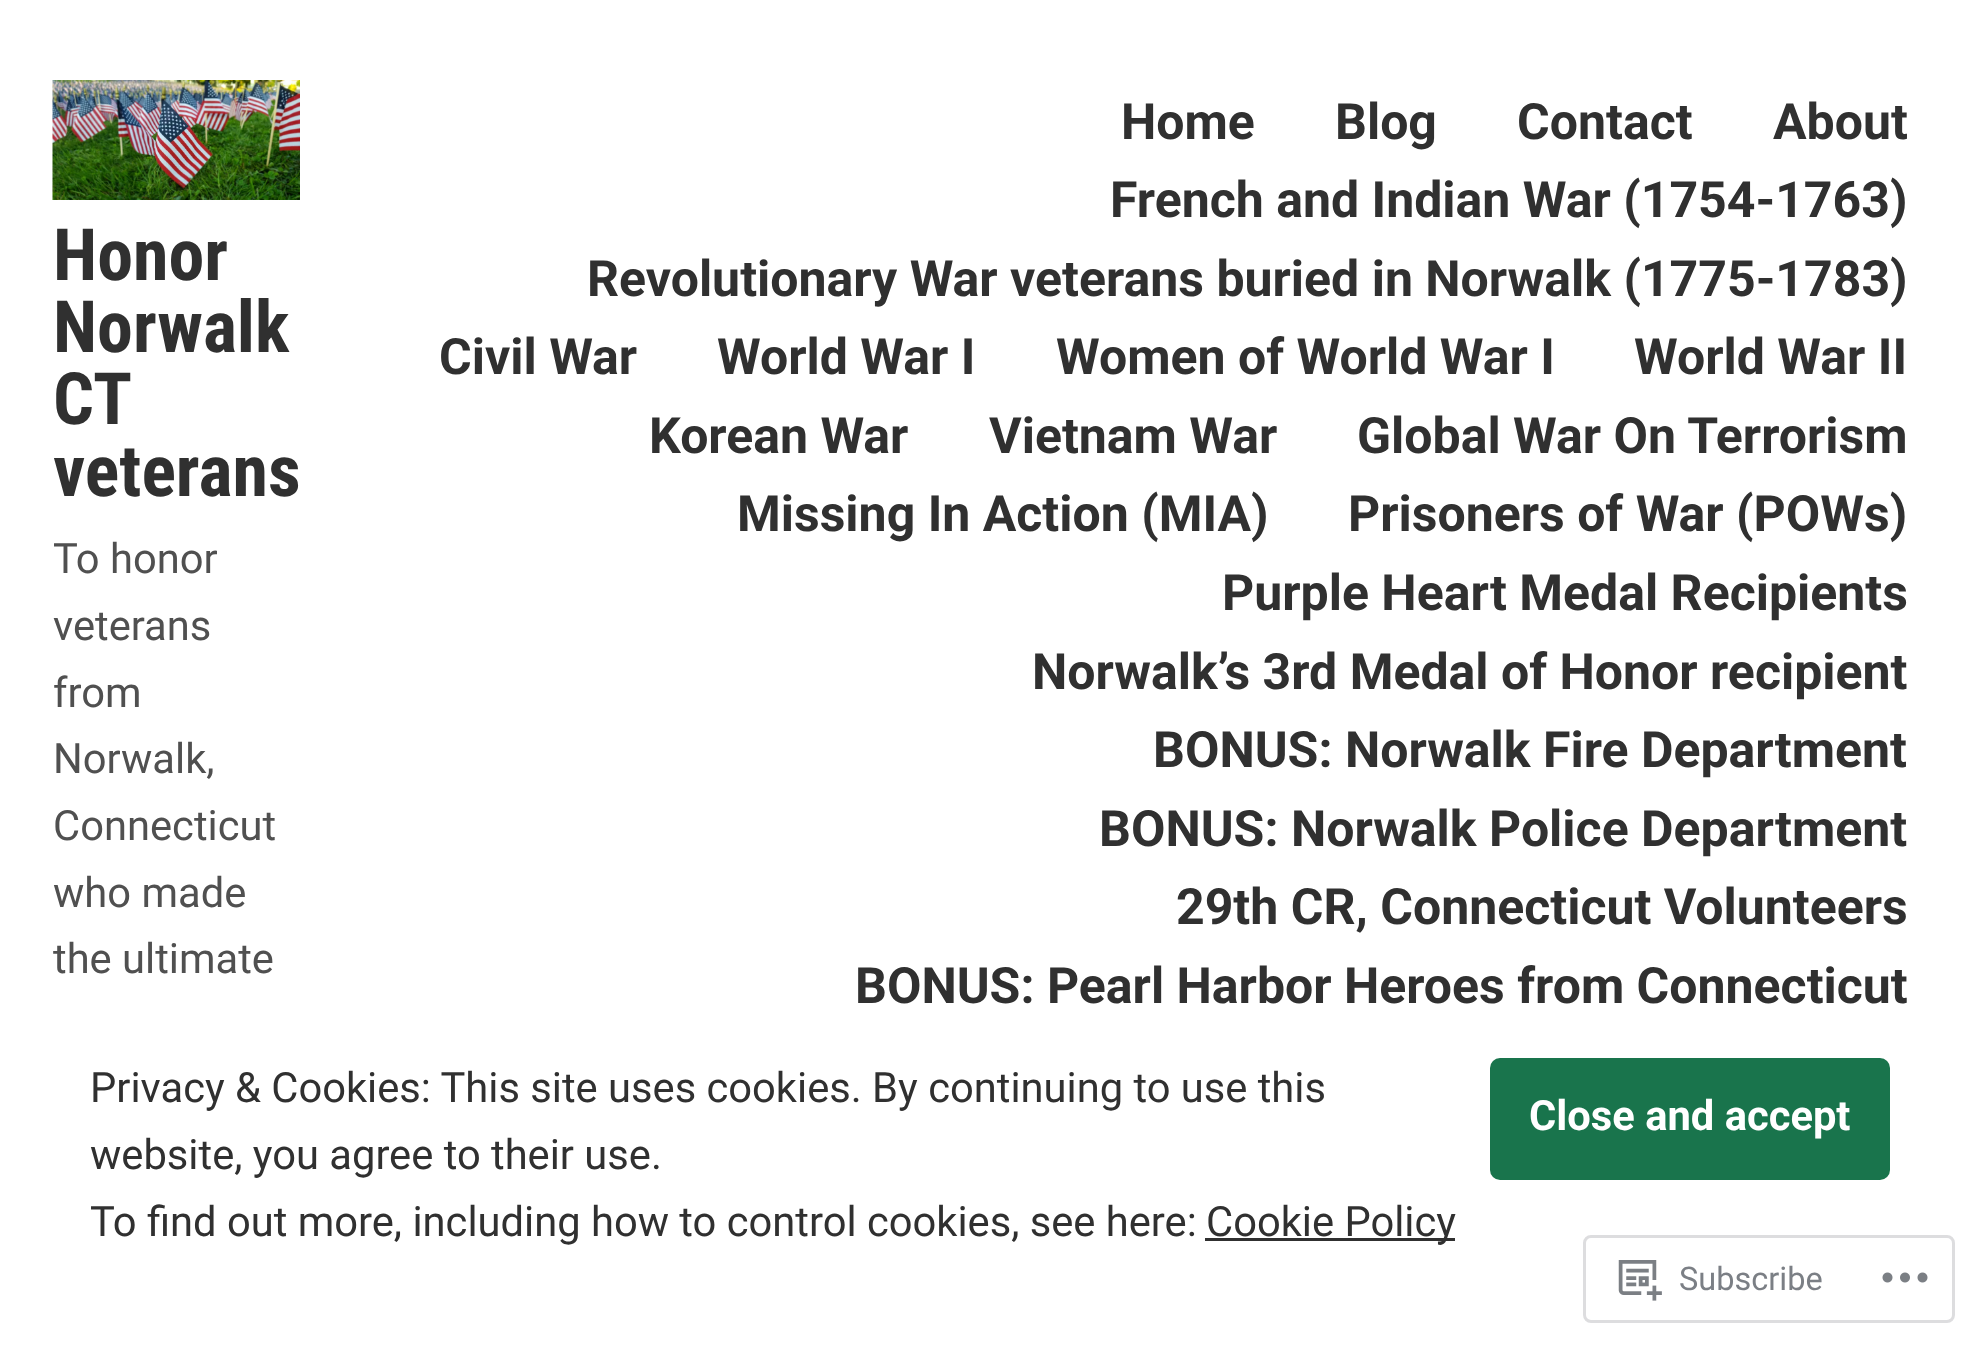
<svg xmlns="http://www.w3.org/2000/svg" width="1980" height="1346">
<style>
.a{font:bold 72px Roboto Condensed;fill:#303030}
.b{font:41.7px Roboto;fill:#505050}
.c{font:bold 50px Roboto;fill:#303030}
.d{font:41.7px Roboto;fill:#303030}
.e{font:bold 41.7px Roboto;fill:#fff}
.f{font:32.5px Roboto;fill:#7b7f85}
</style>
<rect width="100%" height="100%" fill="#fff"/>
<image href="1.png" x="52" y="80" width="248" height="120"/>
<rect fill="#19744c" x="1490" y="1058" width="400" height="122" rx="10"/>
<path fill="#303030" d="M1205 1238h250v3H1205z"/>
<rect fill="none" stroke="#dcdcdefa" stroke-width="3" x="1584.5" y="1236.5" width="369" height="85" rx="6.5"/>
<image href="2.png" x="1618" y="1260" width="44" height="41"/>
<image href="3.png" x="1882" y="1272" width="46" height="11"/>
<text class="a" x="53" y="280">Honor</text>
<text class="a" x="53" y="352">Norwalk</text>
<text class="a" x="53" y="424">CT</text>
<text class="a" x="53" y="496">veterans</text>
<text class="b" x="53" y="573">To honor</text>
<text class="b" x="53" y="640">veterans</text>
<text class="b" x="53" y="707">from</text>
<text class="b" x="53" y="773">Norwalk,</text>
<text class="b" x="53" y="840">Connecticut</text>
<text class="b" x="53" y="907">who made</text>
<text class="b" x="53" y="973">the ultimate</text>
<text class="c" x="1121" y="139">Home</text>
<text class="c" x="1335" y="139">Blog</text>
<text class="c" x="1517" y="139">Contact</text>
<text class="c" x="1773" y="139">About</text>
<text class="c" x="1110" y="217">French and Indian War (1754-1763)</text>
<text class="c" x="587" y="296">Revolutionary War veterans buried in Norwalk (1775-1783)</text>
<text class="c" x="439" y="374">Civil War</text>
<text class="c" x="717" y="374">World War I</text>
<text class="c" x="1056" y="374">Women of World War I</text>
<text class="c" x="1634" y="374">World War II</text>
<text class="c" x="649" y="453">Korean War</text>
<text class="c" x="989" y="453">Vietnam War</text>
<text class="c" x="1357" y="453">Global War On Terrorism</text>
<text class="c" x="737" y="531">Missing In Action (MIA)</text>
<text class="c" x="1348" y="531">Prisoners of War (POWs)</text>
<text class="c" x="1222" y="610">Purple Heart Medal Recipients</text>
<text class="c" x="1032" y="689">Norwalk’s 3rd Medal of Honor recipient</text>
<text class="c" x="1153" y="767">BONUS: Norwalk Fire Department</text>
<text class="c" x="1099" y="846">BONUS: Norwalk Police Department</text>
<text class="c" x="1176" y="924">29th CR, Connecticut Volunteers</text>
<text class="c" x="855" y="1003">BONUS: Pearl Harbor Heroes from Connecticut</text>
<text class="d" x="90" y="1102">Privacy &amp; Cookies: This site uses cookies. By continuing to use this</text>
<text class="e" x="1529" y="1130">Close and accept</text>
<text class="d" x="90" y="1169">website, you agree to their use.</text>
<text class="d" x="90" y="1236">To find out more, including how to control cookies, see here:</text>
<text class="d" x="1206" y="1236">Cookie Policy</text>
<text class="f" x="1679" y="1290">Subscribe</text>
</svg>
